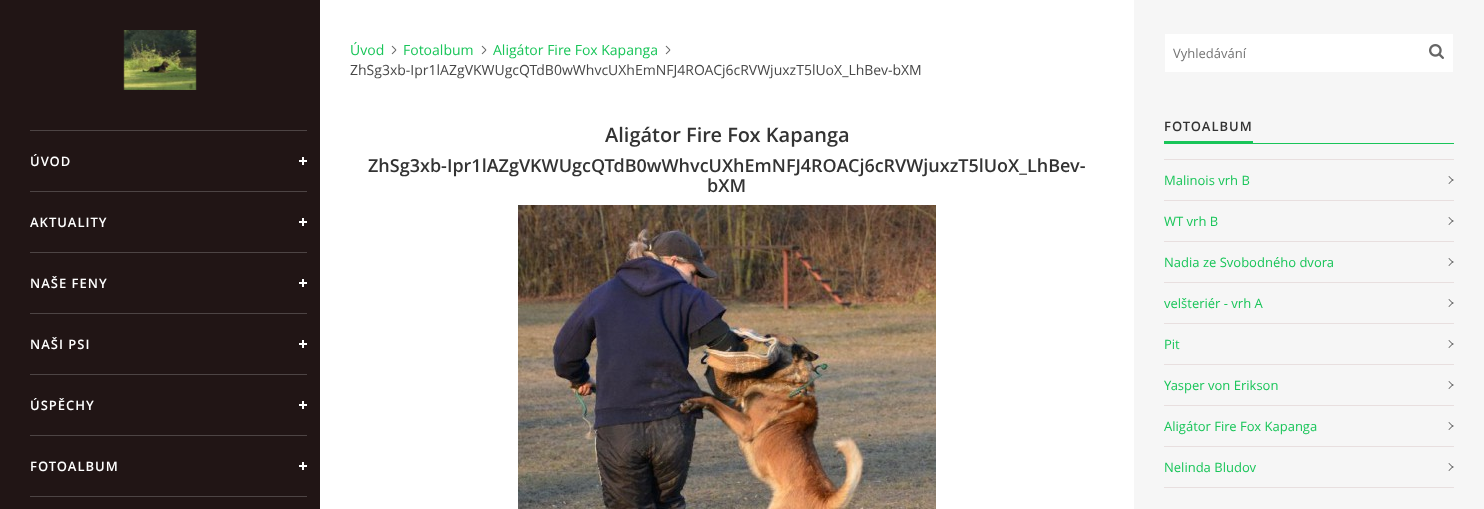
<svg xmlns="http://www.w3.org/2000/svg" width="1484" height="509">
<style>
.a{font:600 13px Open Sans;letter-spacing:1px;fill:#fff}
.b{font:14px Open Sans;fill:#19c559}
.c{font:14px Open Sans;fill:#484848}
.d{font:600 20px Open Sans;fill:#333}
.e{font:600 18px Open Sans;fill:#333}
.f{font:13px Open Sans;fill:#757575}
.g{font:600 13px Open Sans;letter-spacing:1px;fill:#333}
.h{font:13px Open Sans;fill:#19c559}
</style>
<rect width="100%" height="100%" fill="#fff"/>
<path fill="#211515" d="M0 0h320v509H0z"/>
<image href="1.png" x="123" y="30" width="74" height="60"/>
<path fill="#4d4444" d="M30 130h277v1H30z"/>
<path fill="#fff" d="M299 160h8v2H299z"/>
<path fill="#fff" d="M302 157h2v8H302z"/>
<path fill="#4d4444" d="M30 191h277v1H30z"/>
<path fill="#fff" d="M299 221h8v2H299z"/>
<path fill="#fff" d="M302 218h2v8H302z"/>
<path fill="#4d4444" d="M30 252h277v1H30z"/>
<path fill="#fff" d="M299 282h8v2H299z"/>
<path fill="#fff" d="M302 279h2v8H302z"/>
<path fill="#4d4444" d="M30 313h277v1H30z"/>
<path fill="#fff" d="M299 343h8v2H299z"/>
<path fill="#fff" d="M302 340h2v8H302z"/>
<path fill="#4d4444" d="M30 374h277v1H30z"/>
<path fill="#fff" d="M299 404h8v2H299z"/>
<path fill="#fff" d="M302 401h2v8H302z"/>
<path fill="#4d4444" d="M30 435h277v1H30z"/>
<path fill="#fff" d="M299 465h8v2H299z"/>
<path fill="#fff" d="M302 462h2v8H302z"/>
<path fill="#4d4444" d="M30 496h277v1H30z"/>
<image href="2.png" x="391" y="45" width="6" height="10"/>
<image href="2.png" x="481" y="45" width="6" height="10"/>
<image href="2.png" x="665" y="45" width="6" height="10"/>
<image href="3.png" x="518" y="205" width="418" height="304"/>
<path fill="#f6f6f6" d="M1134 0h350v509H1134z"/>
<path fill="#fff" d="M1165 34h288v38H1165z"/>
<image href="4.png" x="1429" y="44" width="15" height="15"/>
<path fill="#19c559" d="M1164 141h89v2H1164z"/>
<path fill="#19c559" d="M1164 143h290v1H1164z"/>
<path fill="#e8dfdf" d="M1164 159h290v1H1164z"/>
<path fill="#e8dfdf" d="M1164 200h290v1H1164z"/>
<path fill="#484848" d="M1449 176l4.5 4.5l-.5 .5l-4.5-4.5z"/>
<path fill="#484848" d="M1448.5 183.5l4.5-4.5l.5 .5l-4.5 4.5z"/>
<path fill="#e8dfdf" d="M1164 241h290v1H1164z"/>
<path fill="#484848" d="M1449 217l4.5 4.5l-.5 .5l-4.5-4.5z"/>
<path fill="#484848" d="M1448.5 224.5l4.5-4.5l.5 .5l-4.5 4.5z"/>
<path fill="#e8dfdf" d="M1164 282h290v1H1164z"/>
<path fill="#484848" d="M1449 258l4.5 4.5l-.5 .5l-4.5-4.5z"/>
<path fill="#484848" d="M1448.5 265.5l4.5-4.5l.5 .5l-4.5 4.5z"/>
<path fill="#e8dfdf" d="M1164 323h290v1H1164z"/>
<path fill="#484848" d="M1449 299l4.5 4.5l-.5 .5l-4.5-4.5z"/>
<path fill="#484848" d="M1448.5 306.5l4.5-4.5l.5 .5l-4.5 4.5z"/>
<path fill="#e8dfdf" d="M1164 364h290v1H1164z"/>
<path fill="#484848" d="M1449 340l4.5 4.5l-.5 .5l-4.5-4.5z"/>
<path fill="#484848" d="M1448.5 347.5l4.5-4.5l.5 .5l-4.5 4.5z"/>
<path fill="#e8dfdf" d="M1164 405h290v1H1164z"/>
<path fill="#484848" d="M1449 381l4.5 4.5l-.5 .5l-4.5-4.5z"/>
<path fill="#484848" d="M1448.5 388.5l4.5-4.5l.5 .5l-4.5 4.5z"/>
<path fill="#e8dfdf" d="M1164 446h290v1H1164z"/>
<path fill="#484848" d="M1449 422l4.5 4.5l-.5 .5l-4.5-4.5z"/>
<path fill="#484848" d="M1448.5 429.5l4.5-4.5l.5 .5l-4.5 4.5z"/>
<path fill="#e8dfdf" d="M1164 487h290v1H1164z"/>
<path fill="#484848" d="M1449 463l4.5 4.5l-.5 .5l-4.5-4.5z"/>
<path fill="#484848" d="M1448.5 470.5l4.5-4.5l.5 .5l-4.5 4.5z"/>
<text class="a" x="30" y="166">ÚVOD</text>
<text class="a" x="30" y="227">AKTUALITY</text>
<text class="a" x="30" y="288">NAŠE FENY</text>
<text class="a" x="30" y="349">NAŠI PSI</text>
<text class="a" x="30" y="410">ÚSPĚCHY</text>
<text class="a" x="30" y="471">FOTOALBUM</text>
<text class="b" x="350" y="55">Úvod</text>
<text class="b" x="403" y="55">Fotoalbum</text>
<text class="b" x="493" y="55">Aligátor Fire Fox Kapanga</text>
<text class="c" x="350" y="75">ZhSg3xb-Ipr1lAZgVKWUgcQTdB0wWhvcUXhEmNFJ4ROACj6cRVWjuxzT5lUoX_LhBev-bXM</text>
<text class="d" x="605" y="142">Aligátor Fire Fox Kapanga</text>
<text class="e" x="368" y="172">ZhSg3xb-Ipr1lAZgVKWUgcQTdB0wWhvcUXhEmNFJ4ROACj6cRVWjuxzT5lUoX_LhBev-</text>
<text class="e" x="707" y="192">bXM</text>
<text class="f" x="1173" y="58">Vyhledávání</text>
<text class="g" x="1164" y="131">FOTOALBUM</text>
<text class="h" x="1164" y="185">Malinois vrh B</text>
<text class="h" x="1164" y="226">WT vrh B</text>
<text class="h" x="1164" y="267">Nadia ze Svobodného dvora</text>
<text class="h" x="1164" y="308">velšteriér - vrh A</text>
<text class="h" x="1164" y="349">Pit</text>
<text class="h" x="1164" y="390">Yasper von Erikson</text>
<text class="h" x="1164" y="431">Aligátor Fire Fox Kapanga</text>
<text class="h" x="1164" y="472">Nelinda Bludov</text>
</svg>
